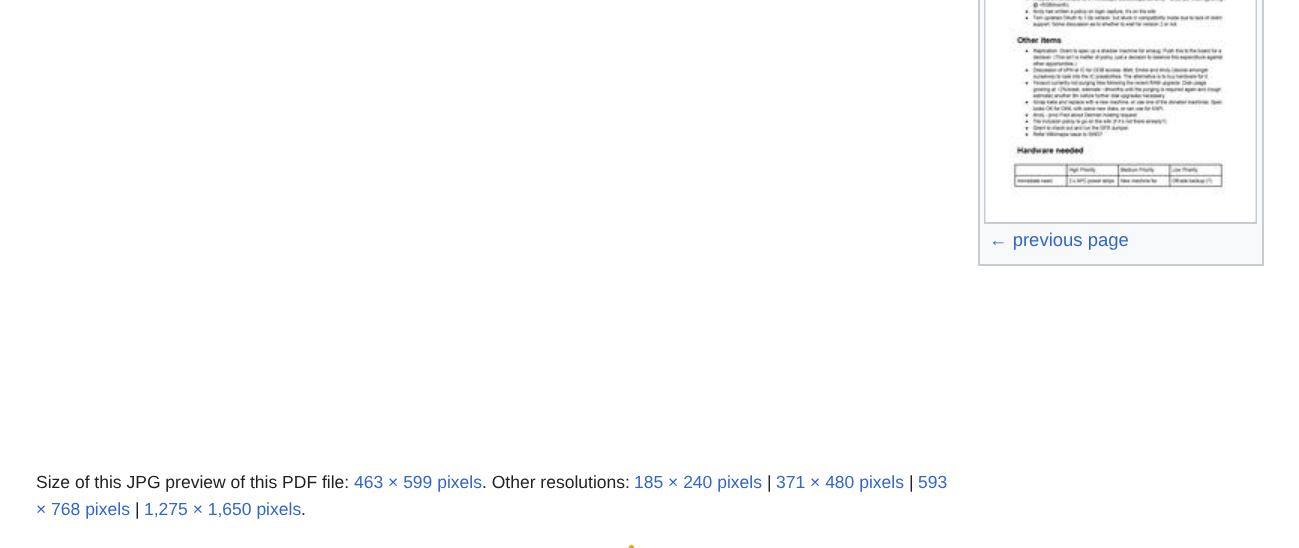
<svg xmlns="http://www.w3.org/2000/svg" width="1299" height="548">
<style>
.a{font:18.5px Liberation Sans;fill:#36c}
.b{font:17.5px Liberation Sans;fill:#202122}
.c{font:17.5px Liberation Sans;fill:#36c}
</style>
<rect width="100%" height="100%" fill="#fff"/>
<path fill="#f8f9fa" d="M980 0h282v264H980z"/>
<path fill="#c8ccd1" d="M978 264h285v2H978z"/>
<path fill="#c8ccd1" d="M1262 0h2v266H1262z"/>
<path fill="#c8ccd1" d="M978 0h2v266H978z"/>
<path fill="none" stroke="#c8ccd1" stroke-width="2" d="M985 -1h271v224H985z"/>
<image href="1.png" x="985" y="0" width="271" height="222"/>
<image href="2.png" x="628" y="544" width="7" height="4"/>
<text class="a" x="989" y="246">← previous page</text>
<text class="b" x="36" y="488">Size of this JPG preview of this PDF file:</text>
<text class="c" x="354" y="488">463 × 599 pixels</text>
<text class="b" x="482" y="488">. Other resolutions:</text>
<text class="c" x="634" y="488">185 × 240 pixels</text>
<text class="b" x="767" y="488">|</text>
<text class="c" x="776" y="488">371 × 480 pixels</text>
<text class="b" x="909" y="488">|</text>
<text class="c" x="918" y="488">593</text>
<text class="c" x="36" y="515">× 768 pixels</text>
<text class="b" x="135" y="515">|</text>
<text class="c" x="144" y="515">1,275 × 1,650 pixels</text>
<text class="b" x="301" y="515">.</text>
</svg>
